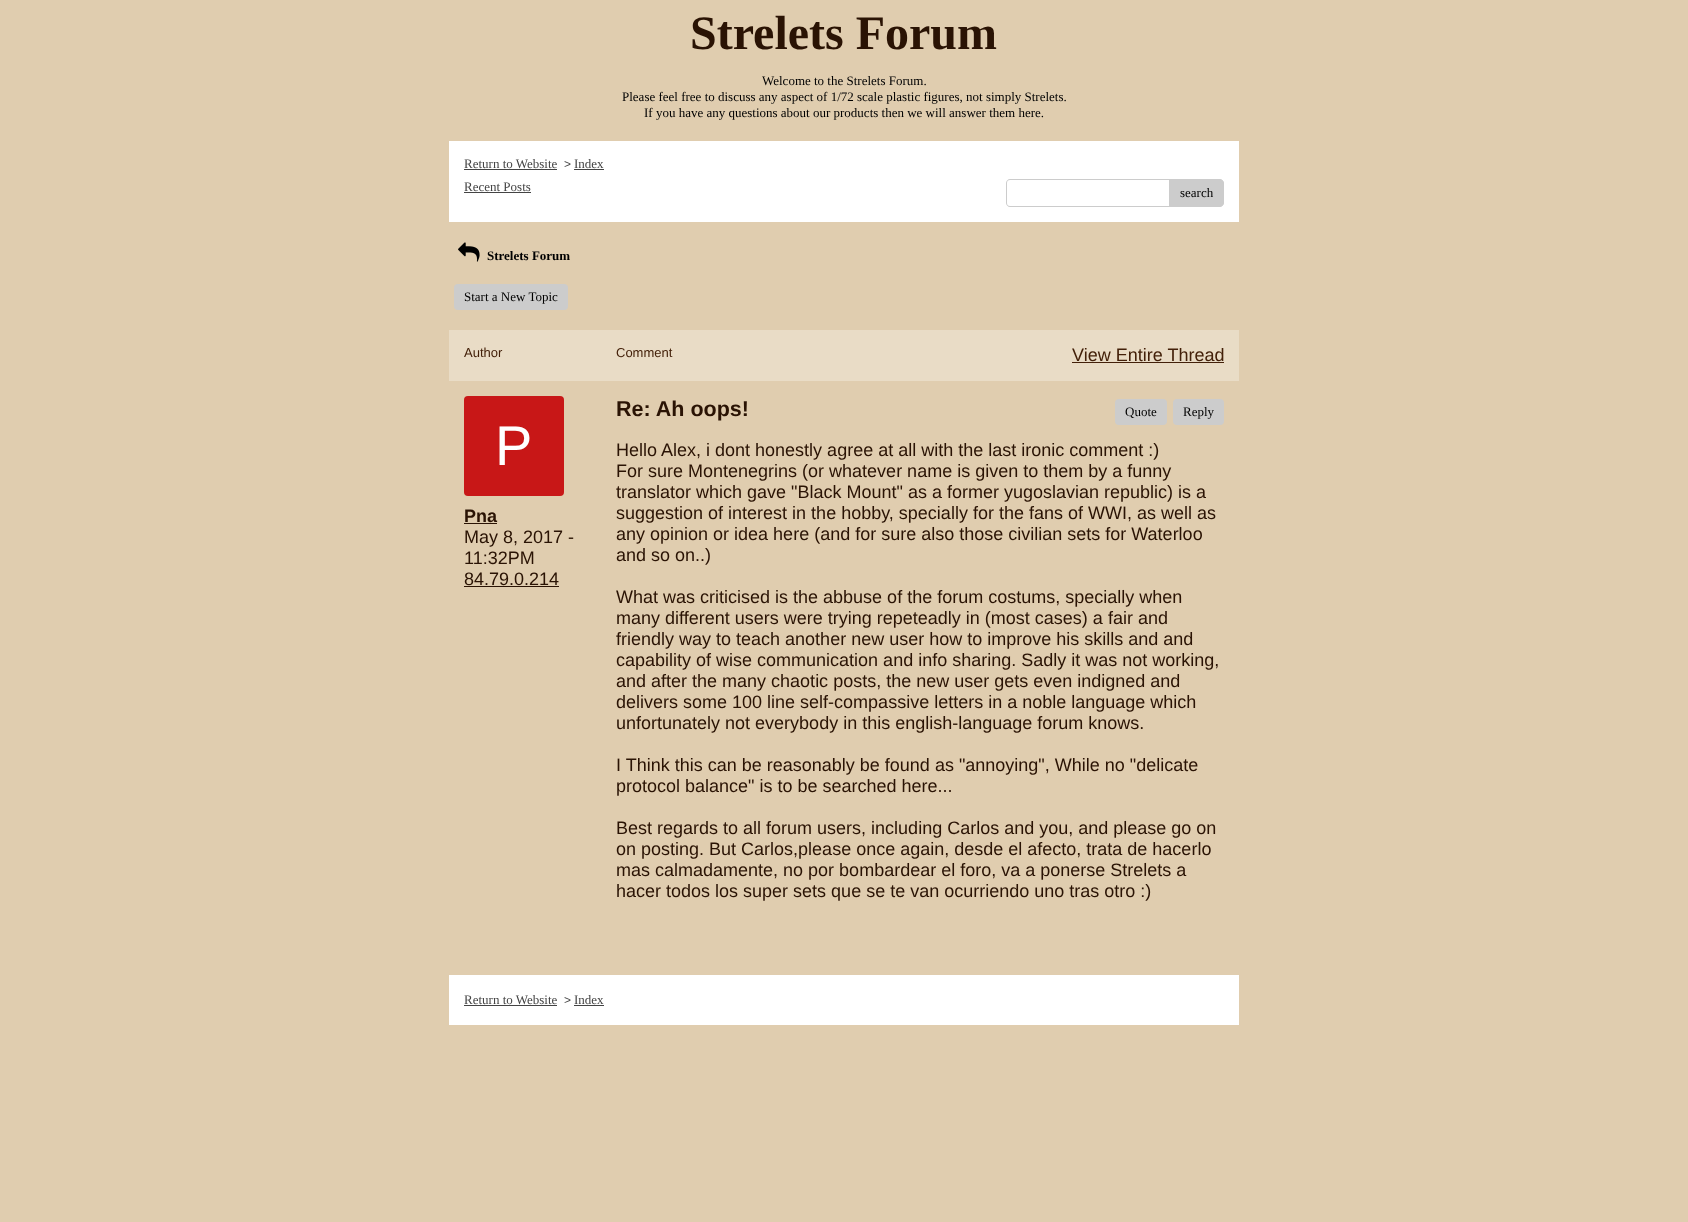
<svg xmlns="http://www.w3.org/2000/svg" width="1688" height="1222">
<style>
.a{font:bold 48px Liberation Serif;fill:#2a1304}
.b{font:13px Liberation Serif;fill:#000}
.c{font:13px Liberation Serif;fill:#444}
.d{font:12px Liberation Sans;fill:#444}
.e{font:bold 13px Liberation Serif;fill:#000}
.f{font:13px Liberation Sans;fill:#432009}
.g{font:18px Liberation Sans;fill:#432009}
.h{font:56px Liberation Sans;fill:#fff}
.i{font:bold 18px Liberation Sans;fill:#2a1304}
.j{font:18px Liberation Sans;fill:#2a1304}
.k{font:bold 21.5px Liberation Sans;fill:#2a1304}
</style>
<rect width="100%" height="100%" fill="#e0cdaf"/>
<path fill="#fff" d="M449 141h790v81H449z"/>
<path fill="#444" d="M464 169h93v1H464z"/>
<path fill="#444" d="M574 169h30v1H574z"/>
<path fill="#444" d="M464 192h67v1H464z"/>
<path fill="#ccc" fill-rule="evenodd" d="M1010 179h200c2 0 4 2 4 4v20c0 2-2 4-4 4h-200c-2 0-4-2-4-4v-20c0-2 2-4 4-4zm0 1h200c2 0 4 1 4 3v20c0 2-2 3-4 3h-200c-2 0-3-1-3-3v-20c0-2 1-3 3-3z"/>
<path fill="#ccc" stroke="#ccc" d="M1169.5 179.5h50.5c2 0 3.5 1.5 3.5 3.5v20c0 2-1.5 3.5-3.5 3.5h-50.5z"/>
<image href="1.png" x="458" y="242" width="22" height="20"/>
<rect fill="#ccc" x="454" y="284" width="114" height="26" rx="4"/>
<path fill="#e9dcc6" d="M449 330h790v51H449z"/>
<path fill="#432009" d="M1072 362h152v1H1072z"/>
<rect fill="#c81717" x="464" y="396" width="100" height="100" rx="4"/>
<path fill="#2a1304" d="M464 523h33v1H464z"/>
<path fill="#2a1304" d="M464 586h95v1H464z"/>
<rect fill="#ccc" x="1115" y="399" width="52" height="26" rx="4"/>
<rect fill="#ccc" x="1173" y="399" width="51" height="26" rx="4"/>
<path fill="#fff" d="M449 975h790v50H449z"/>
<path fill="#444" d="M464 1005h93v1H464z"/>
<path fill="#444" d="M574 1005h30v1H574z"/>
<text class="a" x="690" y="49">Strelets Forum</text>
<text class="b" x="762" y="85">Welcome to the Strelets Forum.</text>
<text class="b" x="622" y="101">Please feel free to discuss any aspect of 1/72 scale plastic figures, not simply Strelets.</text>
<text class="b" x="644" y="117">If you have any questions about our products then we will answer them here.</text>
<text class="c" x="464" y="168">Return to Website</text>
<text class="d" x="564" y="168">&gt;</text>
<text class="c" x="574" y="168">Index</text>
<text class="c" x="464" y="191">Recent Posts</text>
<text class="b" x="1180" y="197">search</text>
<text class="e" x="487" y="260">Strelets Forum</text>
<text class="b" x="464" y="301">Start a New Topic</text>
<text class="f" x="464" y="357">Author</text>
<text class="f" x="616" y="357">Comment</text>
<text class="g" x="1072" y="361">View Entire Thread</text>
<text class="h" x="495" y="465">P</text>
<text class="i" x="464" y="522">Pna</text>
<text class="j" x="464" y="543">May 8, 2017 -</text>
<text class="j" x="464" y="564">11:32PM</text>
<text class="j" x="464" y="585">84.79.0.214</text>
<text class="k" x="616" y="416">Re: Ah oops!</text>
<text class="b" x="1125" y="416">Quote</text>
<text class="b" x="1183" y="416">Reply</text>
<text class="j" x="616" y="456">Hello Alex, i dont honestly agree at all with the last ironic comment :)</text>
<text class="j" x="616" y="477">For sure Montenegrins (or whatever name is given to them by a funny</text>
<text class="j" x="616" y="498">translator which gave "Black Mount" as a former yugoslavian republic) is a</text>
<text class="j" x="616" y="519">suggestion of interest in the hobby, specially for the fans of WWI, as well as</text>
<text class="j" x="616" y="540">any opinion or idea here (and for sure also those civilian sets for Waterloo</text>
<text class="j" x="616" y="561">and so on..)</text>
<text class="j" x="616" y="603">What was criticised is the abbuse of the forum costums, specially when</text>
<text class="j" x="616" y="624">many different users were trying repeteadly in (most cases) a fair and</text>
<text class="j" x="616" y="645">friendly way to teach another new user how to improve his skills and and</text>
<text class="j" x="616" y="666">capability of wise communication and info sharing. Sadly it was not working,</text>
<text class="j" x="616" y="687">and after the many chaotic posts, the new user gets even indigned and</text>
<text class="j" x="616" y="708">delivers some 100 line self-compassive letters in a noble language which</text>
<text class="j" x="616" y="729">unfortunately not everybody in this english-language forum knows.</text>
<text class="j" x="616" y="771">I Think this can be reasonably be found as "annoying", While no "delicate</text>
<text class="j" x="616" y="792">protocol balance" is to be searched here...</text>
<text class="j" x="616" y="834">Best regards to all forum users, including Carlos and you, and please go on</text>
<text class="j" x="616" y="855">on posting. But Carlos,please once again, desde el afecto, trata de hacerlo</text>
<text class="j" x="616" y="876">mas calmadamente, no por bombardear el foro, va a ponerse Strelets a</text>
<text class="j" x="616" y="897">hacer todos los super sets que se te van ocurriendo uno tras otro :)</text>
<text class="c" x="464" y="1004">Return to Website</text>
<text class="d" x="564" y="1004">&gt;</text>
<text class="c" x="574" y="1004">Index</text>
</svg>
